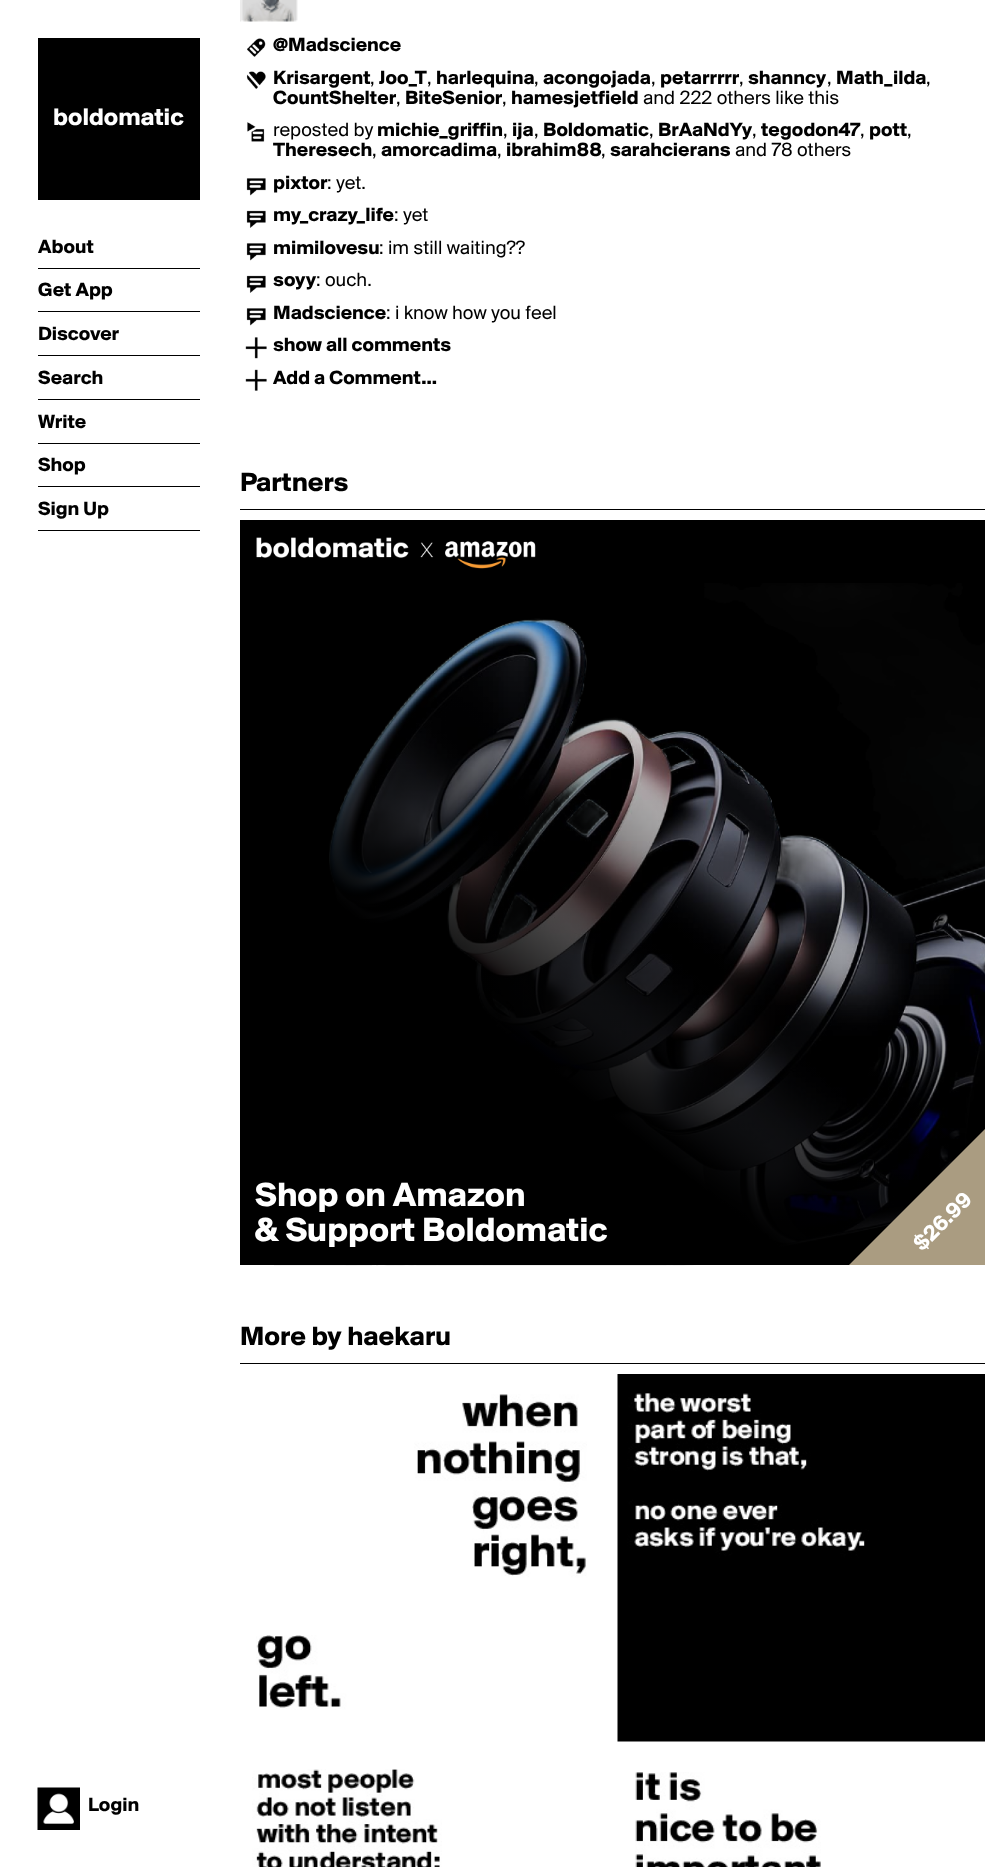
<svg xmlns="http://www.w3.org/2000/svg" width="995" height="1867">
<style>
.a{font:bold 25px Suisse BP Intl;fill:#fff}
.b{font:bold 20px Suisse BP Intl;fill:#000}
.c{font:20px Suisse BP Intl;fill:#000}
.d{font:bold 27.5px Suisse BP Intl;fill:#000}
.e{font:bold 35px Suisse BP Intl;fill:#fff}
.f{font:bold 22.5px Suisse BP Intl;fill:#fff}
</style>
<defs>
<linearGradient id="g1" gradientUnits="userSpaceOnUse" x1="934" y1="480" x2="291" y2="1305"><stop offset="0.29" stop-color="#000" stop-opacity="0"/><stop offset="0.67" stop-color="#000"/></linearGradient>
<clipPath id="clip1"><path d="M240 520h745v745H240z"/></clipPath>
</defs>
<rect width="100%" height="100%" fill="#fff"/>
<path fill="#000" d="M38 38h162v162H38z"/>
<path fill="#000" d="M38 268h162v1H38z"/>
<path fill="#000" d="M38 311h162v1H38z"/>
<path fill="#000" d="M38 355h162v1H38z"/>
<path fill="#000" d="M38 399h162v1H38z"/>
<path fill="#000" d="M38 443h162v1H38z"/>
<path fill="#000" d="M38 486h162v1H38z"/>
<path fill="#000" d="M38 530h162v1H38z"/>
<image href="1.png" x="37" y="1787" width="43" height="43"/>
<image href="2.png" x="240" y="0" width="58" height="22"/>
<image href="3.png" x="247" y="38" width="19" height="19"/>
<image href="4.png" x="246" y="71" width="20" height="18"/>
<image href="5.png" x="247" y="122" width="18" height="20"/>
<image href="6.png" x="246" y="178" width="20" height="18"/>
<image href="7.png" x="246" y="210" width="20" height="18"/>
<image href="6.png" x="246" y="243" width="20" height="18"/>
<image href="8.png" x="246" y="275" width="20" height="18"/>
<image href="6.png" x="246" y="308" width="20" height="18"/>
<image href="9.png" x="245" y="337" width="22" height="22"/>
<image href="10.png" x="245" y="369" width="22" height="22"/>
<path fill="#000" d="M240 509h745v1H240z"/>
<path fill="#000" d="M240 520h745v745H240z"/>
<image href="11.png" x="256" y="537" width="280" height="32"/>
<image href="12.png" x="274" y="583" width="711" height="683"/>
<path fill="url(#g1)" d="M274 620h711v645H274z"/>
<g clip-path="url(#clip1)">
<path fill="#aa9c81" d="M831 1283l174-174l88 88l-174 174z"/>
</g>
<path fill="#000" d="M240 1363h745v1H240z"/>
<image href="13.png" x="256" y="1394" width="331" height="316"/>
<image href="14.png" x="617" y="1374" width="368" height="368"/>
<image href="15.png" x="252" y="1769" width="190" height="98"/>
<image href="16.png" x="635" y="1772" width="186" height="95"/>
<text class="a" x="53" y="125">boldomatic</text>
<text class="b" x="38" y="253">About</text>
<text class="b" x="38" y="296">Get App</text>
<text class="b" x="38" y="340">Discover</text>
<text class="b" x="38" y="384">Search</text>
<text class="b" x="38" y="428">Write</text>
<text class="b" x="38" y="471">Shop</text>
<text class="b" x="38" y="515">Sign Up</text>
<text class="b" x="88" y="1811">Login</text>
<text class="b" x="273" y="51">@Madscience</text>
<text class="b" x="273" y="84">Krisargent</text>
<text class="c" x="370" y="84">,</text>
<text class="b" x="379" y="84">Joo_T</text>
<text class="c" x="427" y="84">,</text>
<text class="b" x="436" y="84">harlequina</text>
<text class="c" x="534" y="84">,</text>
<text class="b" x="543" y="84">acongojada</text>
<text class="c" x="651" y="84">,</text>
<text class="b" x="660" y="84">petarrrrr</text>
<text class="c" x="739" y="84">,</text>
<text class="b" x="748" y="84">shanncy</text>
<text class="c" x="827" y="84">,</text>
<text class="b" x="836" y="84">Math_ilda</text>
<text class="c" x="926" y="84">,</text>
<text class="b" x="273" y="104">CountShelter</text>
<text class="c" x="396" y="104">,</text>
<text class="b" x="405" y="104">BiteSenior</text>
<text class="c" x="502" y="104">,</text>
<text class="b" x="511" y="104">hamesjetfield</text>
<text class="c" x="643" y="104">and 222 others like this</text>
<text class="c" x="273" y="136">reposted by</text>
<text class="b" x="377" y="136">michie_griffin</text>
<text class="c" x="503" y="136">,</text>
<text class="b" x="512" y="136">ija</text>
<text class="c" x="534" y="136">,</text>
<text class="b" x="543" y="136">Boldomatic</text>
<text class="c" x="649" y="136">,</text>
<text class="b" x="658" y="136">BrAaNdYy</text>
<text class="c" x="752" y="136">,</text>
<text class="b" x="761" y="136">tegodon47</text>
<text class="c" x="860" y="136">,</text>
<text class="b" x="869" y="136">pott</text>
<text class="c" x="907" y="136">,</text>
<text class="b" x="273" y="156">Theresech</text>
<text class="c" x="372" y="156">,</text>
<text class="b" x="381" y="156">amorcadima</text>
<text class="c" x="497" y="156">,</text>
<text class="b" x="506" y="156">ibrahim88</text>
<text class="c" x="601" y="156">,</text>
<text class="b" x="610" y="156">sarahcierans</text>
<text class="c" x="735" y="156">and 78 others</text>
<text class="b" x="273" y="189">pixtor</text>
<text class="c" x="327" y="189">: yet.</text>
<text class="b" x="273" y="221">my_crazy_life</text>
<text class="c" x="394" y="221">: yet</text>
<text class="b" x="273" y="254">mimilovesu</text>
<text class="c" x="379" y="254">: im still waiting??</text>
<text class="b" x="273" y="286">soyy</text>
<text class="c" x="316" y="286">: ouch.</text>
<text class="b" x="273" y="319">Madscience</text>
<text class="c" x="386" y="319">: i know how you feel</text>
<text class="b" x="273" y="351">show all comments</text>
<text class="b" x="273" y="384">Add a Comment...</text>
<text class="d" x="240" y="491">Partners</text>
<text class="e" x="255" y="1206">Shop on Amazon</text>
<text class="e" x="255" y="1241">&amp; Support Boldomatic</text>
<text class="f" x="922" y="1252" transform="rotate(-45 922 1252)">$26.99</text>
<text class="d" x="240" y="1345">More by haekaru</text>
</svg>
